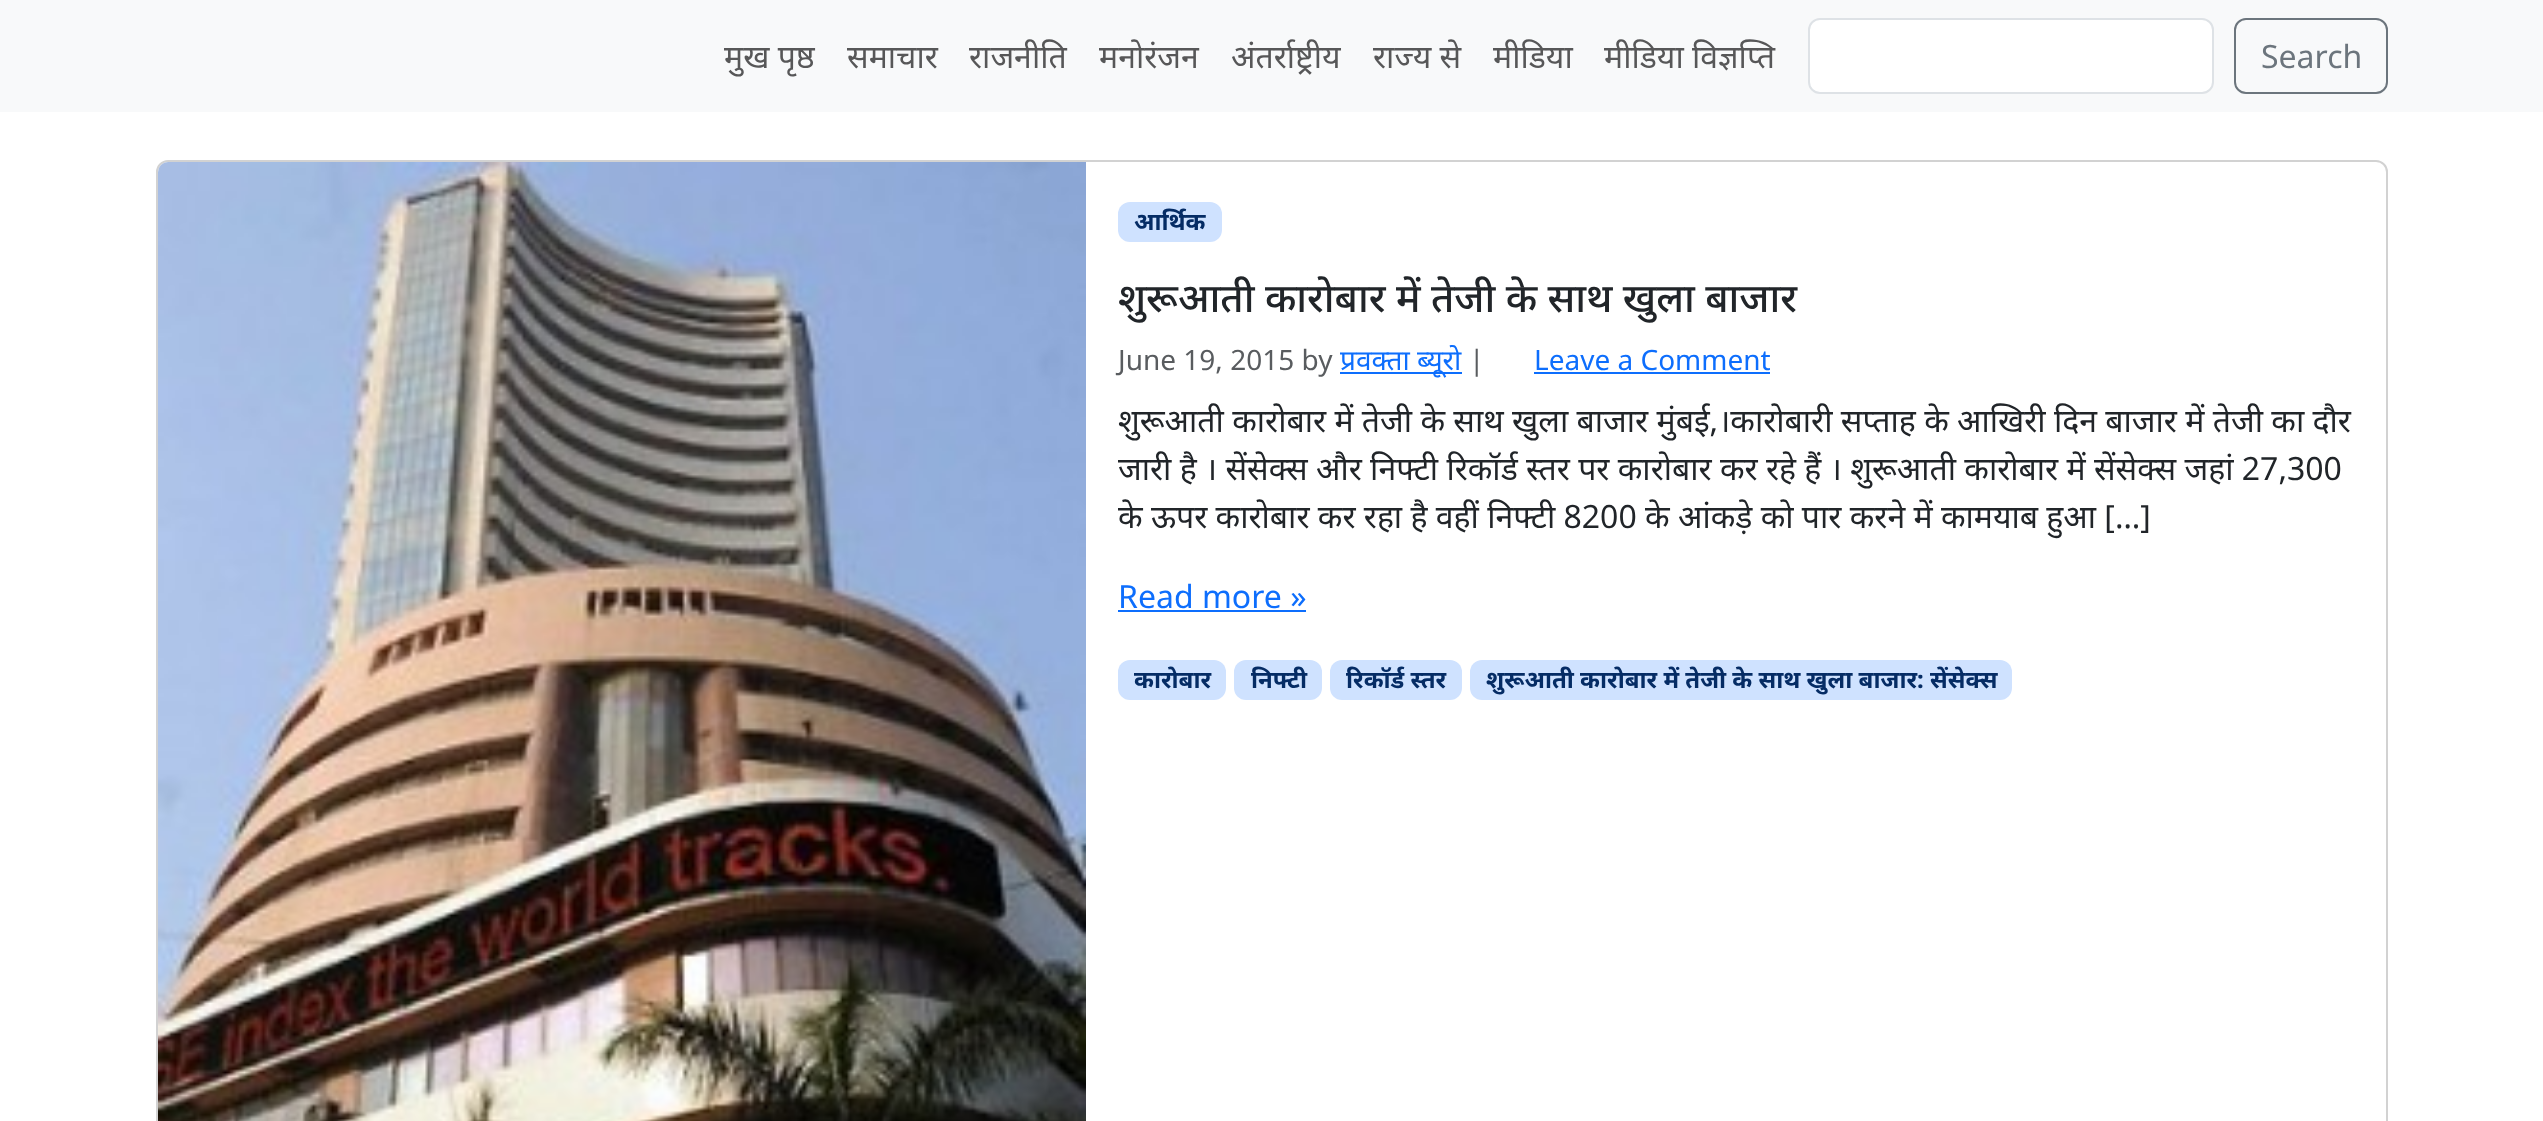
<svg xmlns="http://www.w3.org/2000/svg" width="2543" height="1121">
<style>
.a{font:32px Noto Sans;fill:#575758}
.b{font:32px Noto Sans;fill:#6c757d}
.c{font:bold 24px Noto Sans;fill:#052c65}
.d{font:500 40px Noto Sans;fill:#212529}
.e{font:28px Noto Sans;fill:#595c5f}
.f{font:28px Noto Sans;fill:#0d6efd}
.g{font:32px Noto Sans;fill:#212529}
.h{font:32px Noto Sans;fill:#0d6efd}
</style>
<rect width="100%" height="100%" fill="#fff"/>
<path fill="#f8f9fa" d="M0 0h2543v112H0z"/>
<rect fill="#fff" stroke="#dee2e6" stroke-width="2" x="1809" y="19" width="404" height="74" rx="11"/>
<rect fill="none" stroke="#6c757d" stroke-width="2" x="2235" y="19" width="152" height="74" rx="11"/>
<rect fill="none" stroke="#d2d2d2" stroke-width="2" x="157" y="161" width="2230" height="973" rx="11"/>
<image href="1.png" x="158" y="162" width="928" height="959"/>
<rect fill="#cfe2ff" x="1118" y="202" width="104" height="40" rx="12"/>
<path fill="#0d6efd" d="M1340 372h122v2H1340z"/>
<path fill="#0d6efd" d="M1534 372h236v2H1534z"/>
<path fill="#0d6efd" d="M1118 610h188v2H1118z"/>
<rect fill="#cfe2ff" x="1118" y="660" width="108" height="40" rx="12"/>
<rect fill="#cfe2ff" x="1234" y="660" width="88" height="40" rx="12"/>
<rect fill="#cfe2ff" x="1330" y="660" width="132" height="40" rx="12"/>
<rect fill="#cfe2ff" x="1470" y="660" width="542" height="40" rx="12"/>
<text class="a" x="724" y="68">मुख पृष्ठ</text>
<text class="a" x="847" y="68">समाचार</text>
<text class="a" x="969" y="68">राजनीति</text>
<text class="a" x="1099" y="68">मनोरंजन</text>
<text class="a" x="1231" y="68">अंतर्राष्ट्रीय</text>
<text class="a" x="1373" y="68">राज्य से</text>
<text class="a" x="1493" y="68">मीडिया</text>
<text class="a" x="1604" y="68">मीडिया विज्ञप्ति</text>
<text class="b" x="2261" y="68">Search</text>
<text class="c" x="1134" y="230">आर्थिक</text>
<text class="d" x="1118" y="312">शुरूआती कारोबार में तेजी के साथ खुला बाजार</text>
<text class="e" x="1118" y="370">June 19, 2015 by</text>
<text class="f" x="1340" y="370">प्रवक्ता ब्यूरो</text>
<text class="e" x="1469" y="370">|</text>
<text class="f" x="1534" y="370">Leave a Comment</text>
<text class="g" x="1118" y="432">शुरूआती कारोबार में तेजी के साथ खुला बाजार मुंबई,।कारोबारी सप्ताह के आखिरी दिन बाजार में तेजी का दौर</text>
<text class="g" x="1118" y="480">जारी है । सेंसेक्स और निफ्टी रिकॉर्ड स्तर पर कारोबार कर रहे हैं । शुरूआती कारोबार में सेंसेक्स जहां 27,300</text>
<text class="g" x="1118" y="528">के ऊपर कारोबार कर रहा है वहीं निफ्टी 8200 के आंकड़े को पार करने में कामयाब हुआ […]</text>
<text class="h" x="1118" y="608">Read more »</text>
<text class="c" x="1134" y="688">कारोबार</text>
<text class="c" x="1251" y="688">निफ्टी</text>
<text class="c" x="1346" y="688">रिकॉर्ड स्तर</text>
<text class="c" x="1486" y="688">शुरूआती कारोबार में तेजी के साथ खुला बाजार: सेंसेक्स</text>
</svg>
